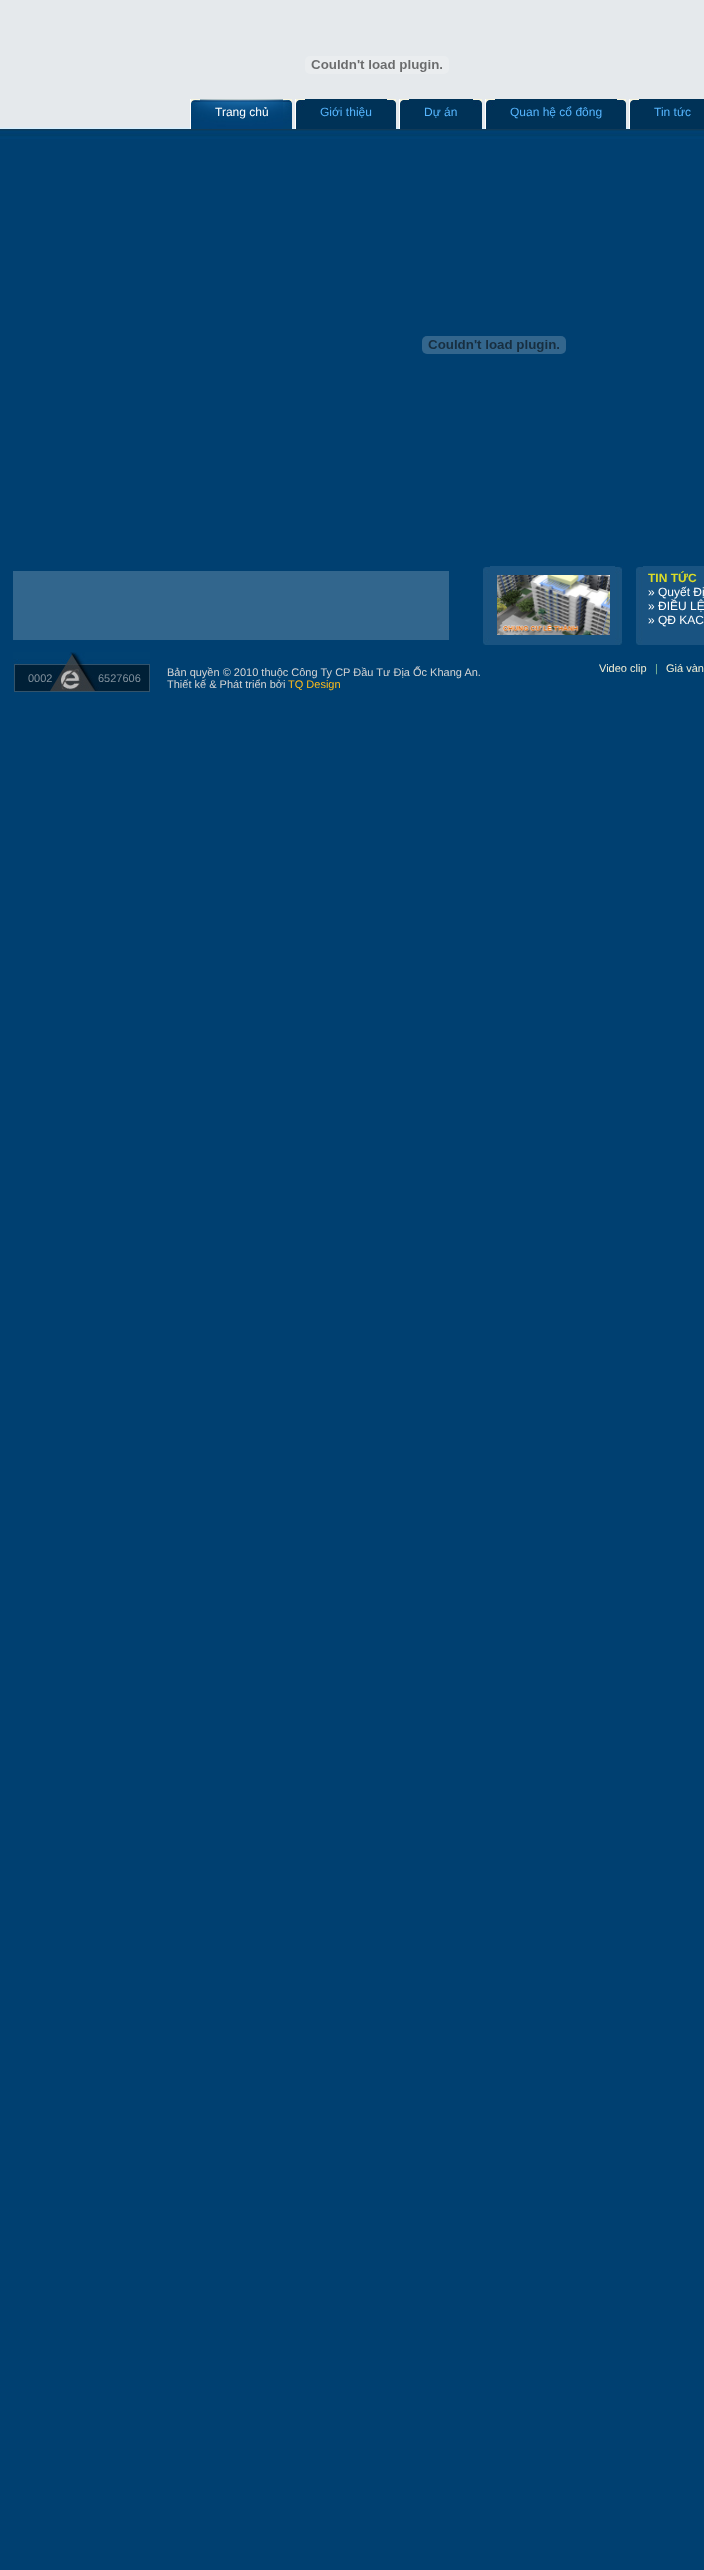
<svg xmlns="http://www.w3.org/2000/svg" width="704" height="2570">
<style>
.a{font:12px Liberation Sans;fill:#fff}
.b{font:12px Liberation Sans;fill:#56b6ff}
.c{font:bold 12px Liberation Sans;fill:#dddd26}
.d{font:11px Liberation Sans;fill:#80909c}
.e{font:11px Liberation Sans;fill:#d4d4d4}
.f{font:11px Liberation Sans;fill:#ffbc1a}
.g{font:11px Liberation Sans;fill:#f0edd4}
.h{font:11px Liberation Sans;fill:#80ba98}
</style>
<rect width="100%" height="100%" fill="#004071"/>
<image href="1.png" x="0" y="0" width="704" height="139"/>
<image href="2.png" x="305" y="56" width="144" height="18"/>
<path fill="#fff" d="M190 99h1v30H190z"/>
<image href="3.png" x="191" y="99" width="9" height="30"/>
<image href="4.png" x="200" y="99" width="83" height="30"/>
<image href="5.png" x="283" y="99" width="9" height="30"/>
<path fill="#fff" d="M295 99h1v30H295z"/>
<image href="6.png" x="296" y="99" width="9" height="30"/>
<path fill="#003257" d="M305 99h82v30H305z"/>
<image href="7.png" x="387" y="99" width="9" height="30"/>
<path fill="#fff" d="M399 99h1v30H399z"/>
<image href="6.png" x="400" y="99" width="9" height="30"/>
<path fill="#003257" d="M409 99h64v30H409z"/>
<image href="7.png" x="473" y="99" width="9" height="30"/>
<path fill="#fff" d="M485 99h1v30H485z"/>
<image href="6.png" x="486" y="99" width="9" height="30"/>
<path fill="#003257" d="M495 99h122v30H495z"/>
<image href="7.png" x="617" y="99" width="9" height="30"/>
<path fill="#fff" d="M629 99h1v30H629z"/>
<image href="6.png" x="630" y="99" width="9" height="30"/>
<path fill="#003257" d="M639 99h65v30H639z"/>
<image href="8.png" x="422" y="336" width="144" height="18"/>
<path fill="#32668d" d="M13 571h436v69H13z"/>
<image href="9.png" x="483" y="567" width="7" height="78"/>
<path fill="#195381" d="M490 566h125v79H490z"/>
<image href="10.png" x="497" y="575" width="113" height="60"/>
<image href="11.png" x="615" y="566" width="8" height="79"/>
<image href="9.png" x="636" y="567" width="7" height="78"/>
<path fill="#195381" d="M643 566h61v79H643z"/>
<image href="12.png" x="13" y="652" width="137" height="40"/>
<text class="a" x="215" y="116">Trang chủ</text>
<text class="b" x="320" y="116">Giới thiệu</text>
<text class="b" x="424" y="116">Dự án</text>
<text class="b" x="510" y="116">Quan hệ cổ đông</text>
<text class="b" x="654" y="116">Tin tức</text>
<text class="c" x="648" y="582">TIN TỨC</text>
<text class="a" x="648" y="596">» Quyết Đị</text>
<text class="a" x="648" y="610">» ĐIỀU LỆ</text>
<text class="a" x="648" y="624">» QĐ KAC</text>
<text class="d" x="28" y="682">0002</text>
<text class="d" x="98" y="682">6527606</text>
<text class="e" x="167" y="676">Bản quyền © 2010 thuộc Công Ty CP Đầu Tư Địa Ốc Khang An.</text>
<text class="e" x="167" y="688">Thiết kế &amp; Phát triển bởi</text>
<text class="f" x="288" y="688">TQ Design</text>
<text class="g" x="599" y="672">Video clip</text>
<text class="h" x="655" y="672">|</text>
<text class="g" x="666" y="672">Giá vàn</text>
</svg>
